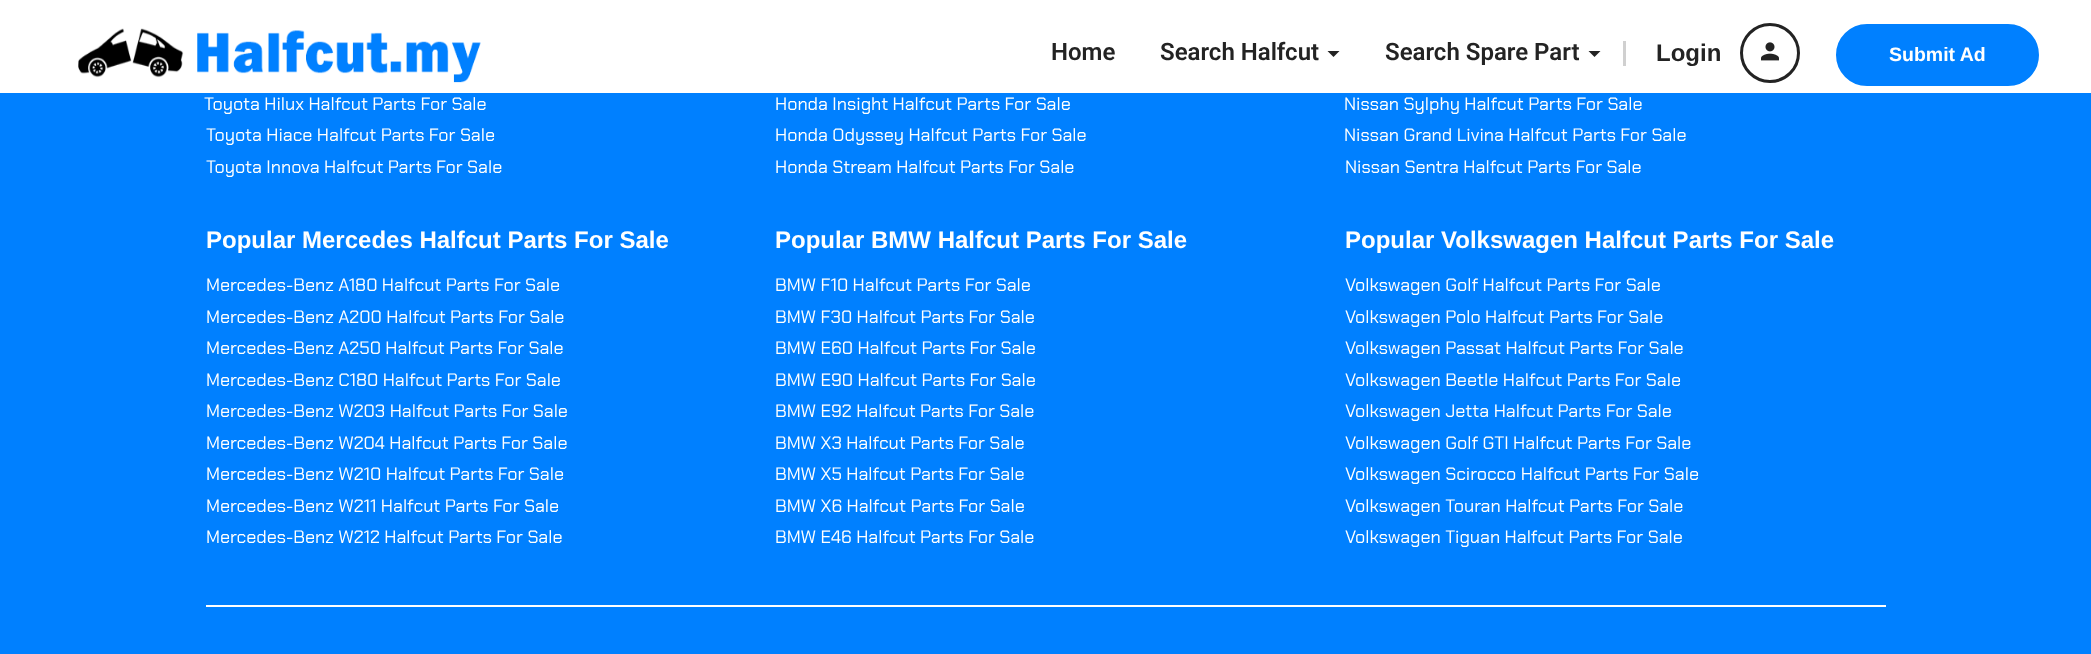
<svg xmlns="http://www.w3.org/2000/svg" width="2091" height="654">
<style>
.a{font:600 24px Roboto;fill:#232323}
.b{font:bold 24px Liberation Sans;fill:#232323}
.c{font:bold 19.5px Liberation Sans;fill:#fff}
.d{font:18px Chakra Petch;fill:#fff}
.e{font:bold 24px Liberation Sans;fill:#fff}
</style>
<rect width="100%" height="100%" fill="#0080ff"/>
<path fill="#fff" d="M0 0h2091v93H0z"/>
<image href="1.png" x="78" y="28" width="403" height="55"/>
<path fill="#232323" d="M1327.5 51h12l-6 6z"/>
<path fill="#232323" d="M1588.5 51h12l-6 6z"/>
<path fill="#d0d0d0" d="M1623 41h3v25H1623z"/>
<circle fill="none" stroke="#232323" stroke-width="3" cx="1770" cy="53" r="28.5"/>
<image href="2.png" x="1761" y="42" width="18" height="19"/>
<rect fill="#0080ff" stroke="#0080ff" stroke-width="3" x="1837.5" y="25.5" width="200" height="59" rx="29.5"/>
<path fill="#fff" d="M206 605h1680v2H206z"/>
<text class="a" x="1051" y="60">Home</text>
<text class="a" x="1160" y="60">Search Halfcut</text>
<text class="a" x="1385" y="60">Search Spare Part</text>
<text class="b" x="1656" y="61">Login</text>
<text class="c" x="1889" y="61">Submit Ad</text>
<text class="d" x="204" y="110">Toyota Hilux Halfcut Parts For Sale</text>
<text class="d" x="206" y="141">Toyota Hiace Halfcut Parts For Sale</text>
<text class="d" x="206" y="173">Toyota Innova Halfcut Parts For Sale</text>
<text class="d" x="775" y="110">Honda Insight Halfcut Parts For Sale</text>
<text class="d" x="775" y="141">Honda Odyssey Halfcut Parts For Sale</text>
<text class="d" x="775" y="173">Honda Stream Halfcut Parts For Sale</text>
<text class="d" x="1344" y="110">Nissan Sylphy Halfcut Parts For Sale</text>
<text class="d" x="1344" y="141">Nissan Grand Livina Halfcut Parts For Sale</text>
<text class="d" x="1345" y="173">Nissan Sentra Halfcut Parts For Sale</text>
<text class="e" x="206" y="248">Popular Mercedes Halfcut Parts For Sale</text>
<text class="d" x="206" y="291">Mercedes-Benz A180 Halfcut Parts For Sale</text>
<text class="d" x="206" y="323">Mercedes-Benz A200 Halfcut Parts For Sale</text>
<text class="d" x="206" y="354">Mercedes-Benz A250 Halfcut Parts For Sale</text>
<text class="d" x="206" y="386">Mercedes-Benz C180 Halfcut Parts For Sale</text>
<text class="d" x="206" y="417">Mercedes-Benz W203 Halfcut Parts For Sale</text>
<text class="d" x="206" y="449">Mercedes-Benz W204 Halfcut Parts For Sale</text>
<text class="d" x="206" y="480">Mercedes-Benz W210 Halfcut Parts For Sale</text>
<text class="d" x="206" y="512">Mercedes-Benz W211 Halfcut Parts For Sale</text>
<text class="d" x="206" y="543">Mercedes-Benz W212 Halfcut Parts For Sale</text>
<text class="e" x="775" y="248">Popular BMW Halfcut Parts For Sale</text>
<text class="d" x="775" y="291">BMW F10 Halfcut Parts For Sale</text>
<text class="d" x="775" y="323">BMW F30 Halfcut Parts For Sale</text>
<text class="d" x="775" y="354">BMW E60 Halfcut Parts For Sale</text>
<text class="d" x="775" y="386">BMW E90 Halfcut Parts For Sale</text>
<text class="d" x="775" y="417">BMW E92 Halfcut Parts For Sale</text>
<text class="d" x="775" y="449">BMW X3 Halfcut Parts For Sale</text>
<text class="d" x="775" y="480">BMW X5 Halfcut Parts For Sale</text>
<text class="d" x="775" y="512">BMW X6 Halfcut Parts For Sale</text>
<text class="d" x="775" y="543">BMW E46 Halfcut Parts For Sale</text>
<text class="e" x="1345" y="248">Popular Volkswagen Halfcut Parts For Sale</text>
<text class="d" x="1345" y="291">Volkswagen Golf Halfcut Parts For Sale</text>
<text class="d" x="1345" y="323">Volkswagen Polo Halfcut Parts For Sale</text>
<text class="d" x="1345" y="354">Volkswagen Passat Halfcut Parts For Sale</text>
<text class="d" x="1345" y="386">Volkswagen Beetle Halfcut Parts For Sale</text>
<text class="d" x="1345" y="417">Volkswagen Jetta Halfcut Parts For Sale</text>
<text class="d" x="1345" y="449">Volkswagen Golf GTI Halfcut Parts For Sale</text>
<text class="d" x="1345" y="480">Volkswagen Scirocco Halfcut Parts For Sale</text>
<text class="d" x="1345" y="512">Volkswagen Touran Halfcut Parts For Sale</text>
<text class="d" x="1345" y="543">Volkswagen Tiguan Halfcut Parts For Sale</text>
</svg>
